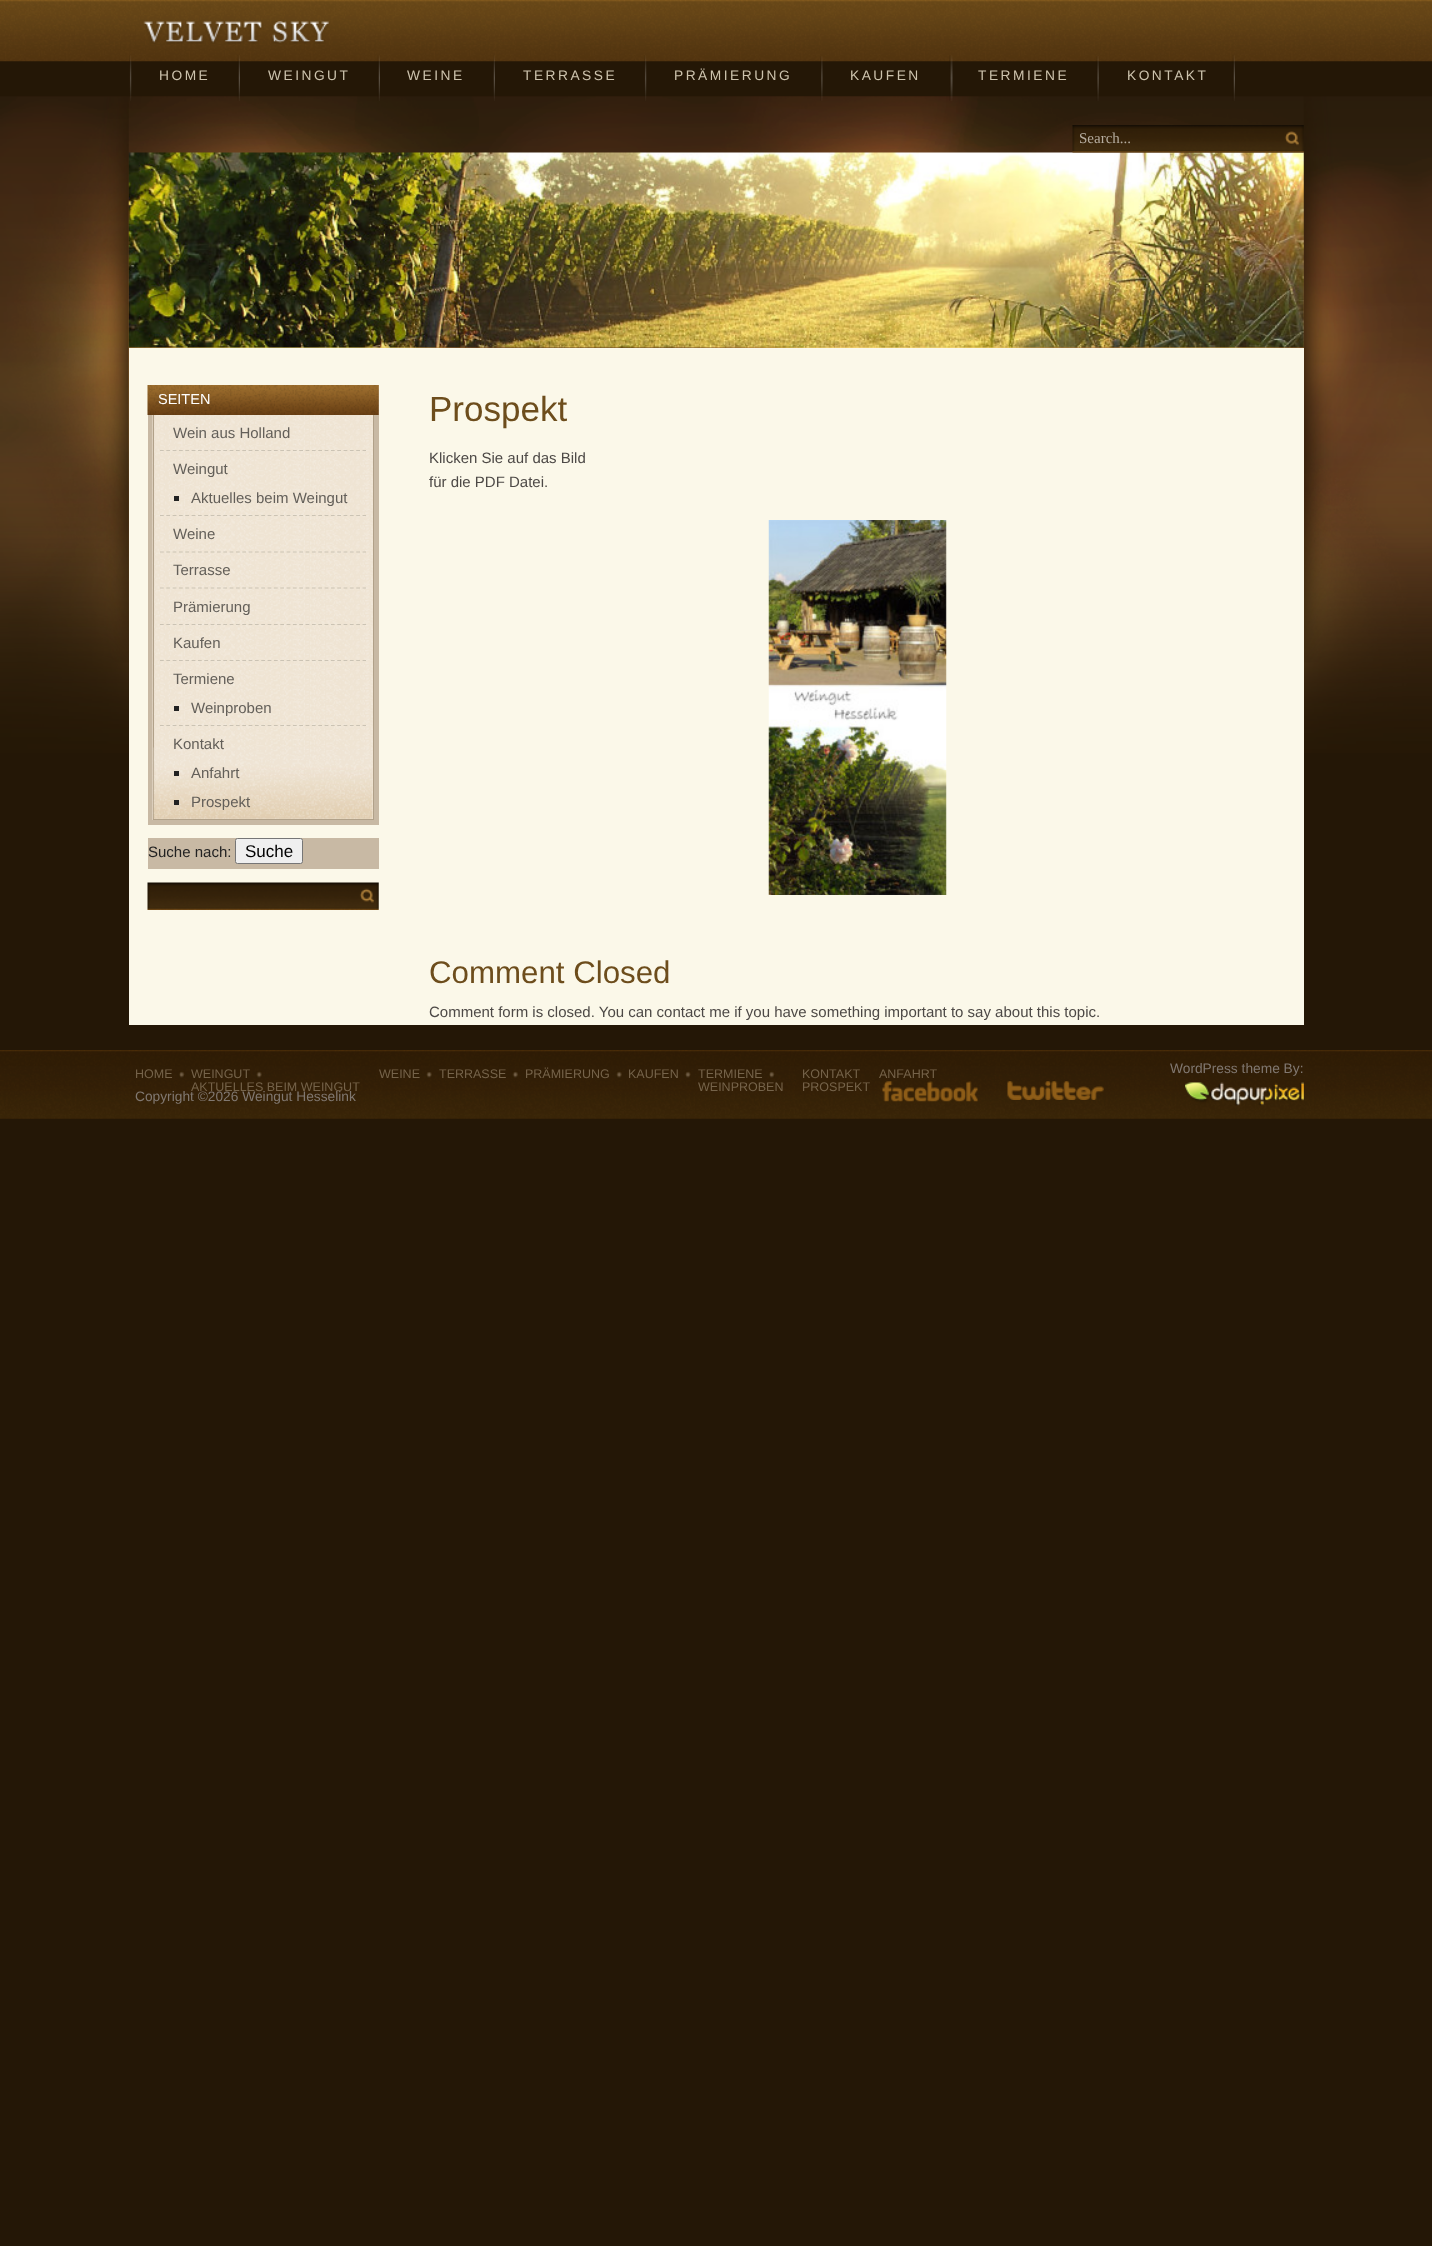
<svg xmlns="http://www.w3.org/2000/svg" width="1432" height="2246">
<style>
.a{font:13.75px Liberation Sans;letter-spacing:2.5px;fill:#cdc3ad}
.b{font:15px Liberation Serif;fill:#b6ada0}
.c{font:14.5px Liberation Sans;fill:#fff}
.d{font:15px Liberation Sans;fill:#635f59}
.e{font:15px Liberation Sans;fill:#222}
.f{font:17px Liberation Sans;fill:#000}
.g{font:35px Liberation Sans;fill:#6d4d1c}
.h{font:15px Liberation Sans;fill:#4d4946}
.i{font:31.25px Liberation Sans;fill:#6d4d1c}
.j{font:12.5px Liberation Sans;fill:#75634a}
.k{font:13.75px Liberation Sans;fill:#817871}
</style>
<rect width="100%" height="100%" fill="#241706"/>
<image href="1.png" x="0" y="96" width="1432" height="657"/>
<image href="2.png" x="0" y="0" width="1432" height="62"/>
<image href="3.png" x="143" y="21" width="186" height="23"/>
<image href="4.png" x="1232" y="55" width="3" height="46"/>
<image href="5.png" x="129" y="55" width="3" height="46"/>
<image href="6.png" x="237" y="55" width="3" height="46"/>
<image href="7.png" x="377" y="55" width="3" height="46"/>
<image href="8.png" x="493" y="55" width="2" height="46"/>
<image href="9.png" x="644" y="55" width="3" height="46"/>
<image href="10.png" x="820" y="56" width="3" height="45"/>
<image href="11.png" x="949" y="55" width="4" height="46"/>
<image href="12.png" x="1096" y="56" width="3" height="45"/>
<image href="14.png" x="128" y="152" width="1176" height="196"/>
<image href="13.png" x="1072" y="125" width="232" height="28"/>
<path fill="#fbf8e9" d="M129 348h1175v677H129z"/>
<path fill="#c8b9a4" d="M148 385h231v440H148z"/>
<image href="15.png" x="147" y="385" width="232" height="30"/>
<image href="16.png" x="152" y="415" width="221" height="405"/>
<path fill="#b1a189" d="M373 415h1v405H373z"/>
<path fill="#b1a189" d="M153 819h221v1H153z"/>
<path fill="#b1a189" d="M153 415h1v405H153z"/>
<image href="17.png" x="153" y="747" width="220" height="72"/>
<path fill="none" stroke="#cbc3b4" stroke-width="1.2" stroke-dasharray="3.75 2.58" d="M160 450.5h206"/>
<path fill="none" stroke="#cbc3b4" stroke-width="1.2" stroke-dasharray="3.75 2.58" d="M160 515.5h206"/>
<path fill="#222" d="M174 496h5v5H174z"/>
<path fill="none" stroke="#cbc3b4" stroke-width="1.2" stroke-dasharray="3.75 2.58" d="M160 552h206"/>
<path fill="none" stroke="#cbc3b4" stroke-width="1.2" stroke-dasharray="3.75 2.58" d="M160 588h206"/>
<path fill="none" stroke="#cbc3b4" stroke-width="1.2" stroke-dasharray="3.75 2.58" d="M160 624.5h206"/>
<path fill="none" stroke="#cbc3b4" stroke-width="1.2" stroke-dasharray="3.75 2.58" d="M160 660.5h206"/>
<path fill="none" stroke="#cbc3b4" stroke-width="1.2" stroke-dasharray="3.75 2.58" d="M160 725.5h206"/>
<path fill="#222" d="M174 706h5v5H174z"/>
<path fill="#222" d="M174 771h5v5H174z"/>
<path fill="#222" d="M174 800h5v5H174z"/>
<path fill="#c8b9a4" d="M148 838h231v31H148z"/>
<rect fill="#efefef" stroke="#767676" x="235.5" y="838.5" width="67" height="25" rx="2"/>
<image href="18.png" x="147" y="882" width="232" height="28"/>
<image href="19.png" x="768" y="520" width="179" height="375"/>
<image href="20.png" x="0" y="1050" width="1432" height="69"/>
<image href="21.png" x="179" y="1071" width="6" height="7"/>
<image href="22.png" x="256" y="1071" width="6" height="7"/>
<image href="23.png" x="426" y="1072" width="6" height="6"/>
<image href="24.png" x="512" y="1071" width="6" height="7"/>
<image href="25.png" x="616" y="1071" width="6" height="7"/>
<image href="26.png" x="685" y="1071" width="6" height="7"/>
<image href="27.png" x="769" y="1071" width="6" height="7"/>
<image href="28.png" x="882" y="1081" width="96" height="21"/>
<image href="29.png" x="1007" y="1081" width="97" height="19"/>
<image href="30.png" x="1185" y="1082" width="119" height="24"/>
<text class="a" x="159" y="80">HOME</text>
<text class="a" x="268" y="80">WEINGUT</text>
<text class="a" x="407" y="80">WEINE</text>
<text class="a" x="523" y="80">TERRASSE</text>
<text class="a" x="674" y="80">PRÄMIERUNG</text>
<text class="a" x="850" y="80">KAUFEN</text>
<text class="a" x="978" y="80">TERMIENE</text>
<text class="a" x="1127" y="80">KONTAKT</text>
<text class="b" x="1079" y="143">Search...</text>
<text class="c" x="158" y="404">SEITEN</text>
<text class="d" x="173" y="438">Wein aus Holland</text>
<text class="d" x="173" y="474">Weingut</text>
<text class="d" x="191" y="503">Aktuelles beim Weingut</text>
<text class="d" x="173" y="539">Weine</text>
<text class="d" x="173" y="575">Terrasse</text>
<text class="d" x="173" y="612">Prämierung</text>
<text class="d" x="173" y="648">Kaufen</text>
<text class="d" x="173" y="684">Termiene</text>
<text class="d" x="191" y="713">Weinproben</text>
<text class="d" x="173" y="749">Kontakt</text>
<text class="d" x="191" y="778">Anfahrt</text>
<text class="d" x="191" y="807">Prospekt</text>
<text class="e" x="148" y="857">Suche nach:</text>
<text class="f" x="245" y="857">Suche</text>
<text class="g" x="429" y="421">Prospekt</text>
<text class="h" x="429" y="463">Klicken Sie auf das Bild</text>
<text class="h" x="429" y="487">für die PDF Datei.</text>
<text class="i" x="429" y="983">Comment Closed</text>
<text class="h" x="429" y="1017">Comment form is closed. You can contact me if you have something important to say about this topic.</text>
<text class="j" x="135" y="1078">HOME</text>
<text class="j" x="191" y="1078">WEINGUT</text>
<text class="j" x="191" y="1091">AKTUELLES BEIM WEINGUT</text>
<text class="j" x="379" y="1078">WEINE</text>
<text class="j" x="439" y="1078">TERRASSE</text>
<text class="j" x="525" y="1078">PRÄMIERUNG</text>
<text class="j" x="628" y="1078">KAUFEN</text>
<text class="j" x="698" y="1078">TERMIENE</text>
<text class="j" x="698" y="1091">WEINPROBEN</text>
<text class="j" x="802" y="1078">KONTAKT</text>
<text class="j" x="879" y="1078">ANFAHRT</text>
<text class="j" x="802" y="1091">PROSPEKT</text>
<text class="k" x="1170" y="1073">WordPress theme By:</text>
<text class="k" x="135" y="1101">Copyright ©2026 Weingut Hesselink</text>
</svg>
